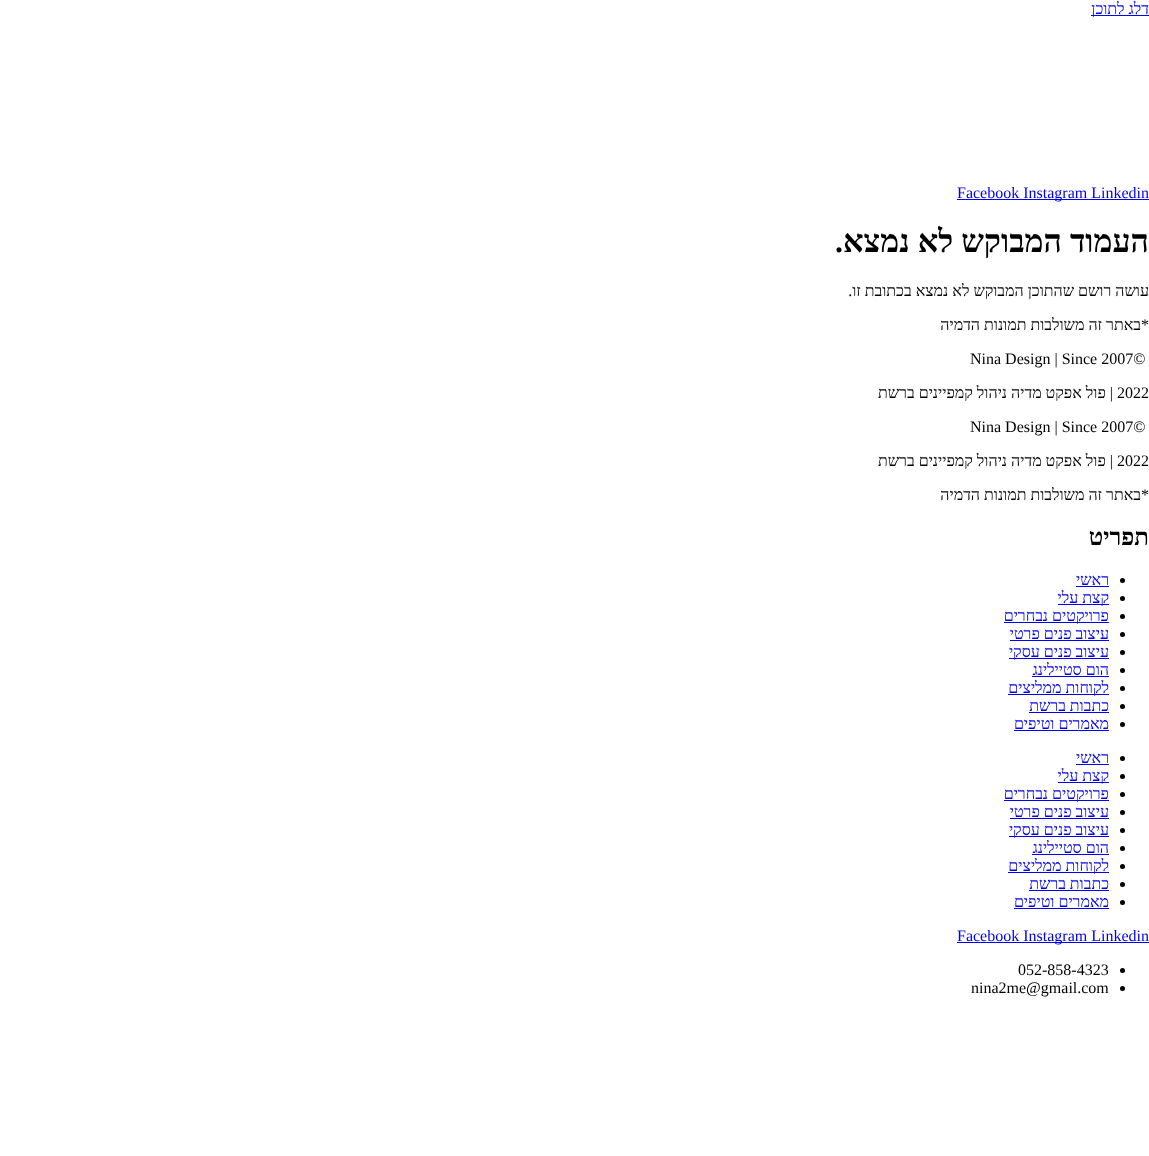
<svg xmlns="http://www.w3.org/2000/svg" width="1149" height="1156">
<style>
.a{font:16px Liberation Serif;direction:rtl;fill:#00e}
.b{font:16px Liberation Serif;fill:#00e}
.c{font:bold 32px Liberation Serif;direction:rtl;fill:#000}
.d{font:16px Liberation Serif;direction:rtl;fill:#000}
.e{font:16px Liberation Serif;fill:#000}
.f{font:bold 24px Liberation Serif;direction:rtl;fill:#000}
</style>
<rect width="100%" height="100%" fill="#fff"/>
<path fill="#00e" d="M1091 15h58v1H1091z"/>
<path fill="#00e" d="M957 199h192v1H957z"/>
<circle fill="#000" cx="1122.5" cy="580.5" r="2.5"/>
<path fill="#00e" d="M1076 586h33v1H1076z"/>
<circle fill="#000" cx="1122.5" cy="598.5" r="2.5"/>
<path fill="#00e" d="M1058 604h51v1H1058z"/>
<circle fill="#000" cx="1122.5" cy="616.5" r="2.5"/>
<path fill="#00e" d="M1004 622h105v1H1004z"/>
<circle fill="#000" cx="1122.5" cy="634.5" r="2.5"/>
<path fill="#00e" d="M1010 640h99v1H1010z"/>
<circle fill="#000" cx="1122.5" cy="652.5" r="2.5"/>
<path fill="#00e" d="M1009 658h100v1H1009z"/>
<circle fill="#000" cx="1122.5" cy="670.5" r="2.5"/>
<path fill="#00e" d="M1032 676h77v1H1032z"/>
<circle fill="#000" cx="1122.5" cy="688.5" r="2.5"/>
<path fill="#00e" d="M1008 694h101v1H1008z"/>
<circle fill="#000" cx="1122.5" cy="706.5" r="2.5"/>
<path fill="#00e" d="M1029 712h80v1H1029z"/>
<circle fill="#000" cx="1122.5" cy="724.5" r="2.5"/>
<path fill="#00e" d="M1014 730h95v1H1014z"/>
<circle fill="#000" cx="1122.5" cy="758.5" r="2.5"/>
<path fill="#00e" d="M1076 764h33v1H1076z"/>
<circle fill="#000" cx="1122.5" cy="776.5" r="2.5"/>
<path fill="#00e" d="M1058 782h51v1H1058z"/>
<circle fill="#000" cx="1122.5" cy="794.5" r="2.5"/>
<path fill="#00e" d="M1004 800h105v1H1004z"/>
<circle fill="#000" cx="1122.5" cy="812.5" r="2.5"/>
<path fill="#00e" d="M1010 818h99v1H1010z"/>
<circle fill="#000" cx="1122.5" cy="830.5" r="2.5"/>
<path fill="#00e" d="M1009 836h100v1H1009z"/>
<circle fill="#000" cx="1122.5" cy="848.5" r="2.5"/>
<path fill="#00e" d="M1032 854h77v1H1032z"/>
<circle fill="#000" cx="1122.5" cy="866.5" r="2.5"/>
<path fill="#00e" d="M1008 872h101v1H1008z"/>
<circle fill="#000" cx="1122.5" cy="884.5" r="2.5"/>
<path fill="#00e" d="M1029 890h80v1H1029z"/>
<circle fill="#000" cx="1122.5" cy="902.5" r="2.5"/>
<path fill="#00e" d="M1014 908h95v1H1014z"/>
<path fill="#00e" d="M957 942h192v1H957z"/>
<circle fill="#000" cx="1122.5" cy="970.5" r="2.5"/>
<circle fill="#000" cx="1122.5" cy="988.5" r="2.5"/>
<text class="a" x="1149" y="14">דלג לתוכן</text>
<text class="b" x="957" y="198">Facebook Instagram Linkedin</text>
<text class="c" x="1149" y="252">העמוד המבוקש לא נמצא.</text>
<text class="d" x="1149" y="296">עושה רושם שהתוכן המבוקש לא נמצא בכתובת זו.</text>
<text class="d" x="1149" y="330">*באתר זה משולבות תמונות הדמיה</text>
<text class="e" x="970" y="364">Nina Design | Since 2007©</text>
<text class="e" x="1117" y="398">2022</text>
<text class="d" x="1113" y="398">| פול אפקט מדיה ניהול קמפיינים ברשת</text>
<text class="e" x="970" y="432">Nina Design | Since 2007©</text>
<text class="e" x="1117" y="466">2022</text>
<text class="d" x="1113" y="466">| פול אפקט מדיה ניהול קמפיינים ברשת</text>
<text class="d" x="1149" y="500">*באתר זה משולבות תמונות הדמיה</text>
<text class="f" x="1149" y="545">תפריט</text>
<text class="a" x="1109" y="585">ראשי</text>
<text class="a" x="1109" y="603">קצת עלי</text>
<text class="a" x="1109" y="621">פרויקטים נבחרים</text>
<text class="a" x="1109" y="639">עיצוב פנים פרטי</text>
<text class="a" x="1109" y="657">עיצוב פנים עסקי</text>
<text class="a" x="1109" y="675">הום סטיילינג</text>
<text class="a" x="1109" y="693">לקוחות ממליצים</text>
<text class="a" x="1109" y="711">כתבות ברשת</text>
<text class="a" x="1109" y="729">מאמרים וטיפים</text>
<text class="a" x="1109" y="763">ראשי</text>
<text class="a" x="1109" y="781">קצת עלי</text>
<text class="a" x="1109" y="799">פרויקטים נבחרים</text>
<text class="a" x="1109" y="817">עיצוב פנים פרטי</text>
<text class="a" x="1109" y="835">עיצוב פנים עסקי</text>
<text class="a" x="1109" y="853">הום סטיילינג</text>
<text class="a" x="1109" y="871">לקוחות ממליצים</text>
<text class="a" x="1109" y="889">כתבות ברשת</text>
<text class="a" x="1109" y="907">מאמרים וטיפים</text>
<text class="b" x="957" y="941">Facebook Instagram Linkedin</text>
<text class="e" x="1018" y="975">052-858-4323</text>
<text class="e" x="971" y="993">nina2me@gmail.com</text>
</svg>
